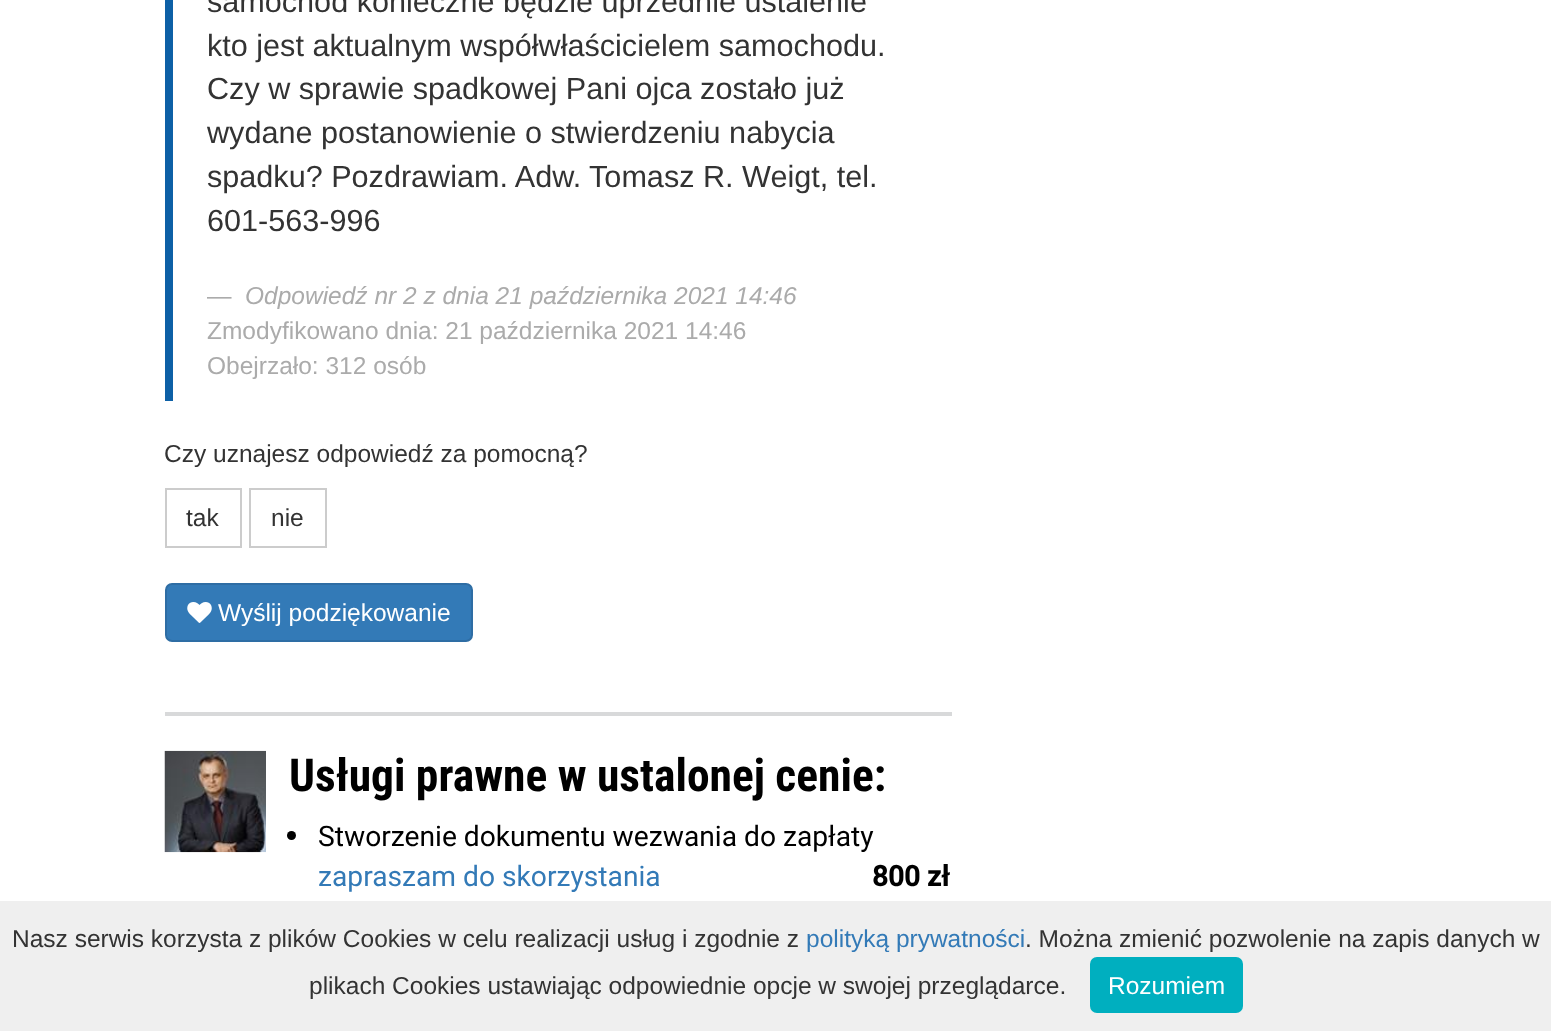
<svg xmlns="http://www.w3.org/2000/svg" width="1551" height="1031">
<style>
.a{font:30.6px Liberation Sans;fill:#333}
.b{font:24.5px Liberation Sans;fill:#ababab}
.c{font:italic 24.5px Liberation Sans;fill:#ababab}
.d{font:24.5px Liberation Sans;fill:#333}
.e{font:24.5px Liberation Sans;fill:#fff}
.f{font:bold 45.5px Roboto Condensed;fill:#000}
.g{font:28.2px Roboto;fill:#000}
.h{font:bold 28.2px Roboto;fill:#000}
.i{font:28.2px Roboto;fill:#337ab7}
.j{font:24.5px Liberation Sans;fill:#337ab7}
</style>
<rect width="100%" height="100%" fill="#fff"/>
<path fill="#0d60a6" d="M165 0h8v401H165z"/>
<path fill="none" stroke="#ccc" stroke-width="2" d="M166 489h75v58H166z"/>
<path fill="none" stroke="#ccc" stroke-width="2" d="M250 489h76v58H250z"/>
<rect fill="#337ab7" stroke="#2e6da4" stroke-width="2" x="166" y="584" width="306" height="57" rx="6"/>
<image href="1.png" x="187" y="602" width="25" height="21"/>
<path fill="#d8d9da" d="M165 712h787v4H165z"/>
<image href="2.png" x="164" y="750" width="102" height="103"/>
<circle fill="#000" cx="291.5" cy="835.5" r="4.5"/>
<path fill="#efefef" d="M0 901h1551v130H0z"/>
<rect fill="#00afbf" x="1090" y="957" width="153" height="56" rx="7"/>
<text class="a" x="207" y="12">samochód konieczne będzie uprzednie ustalenie</text>
<text class="a" x="207" y="56">kto jest aktualnym współwłaścicielem samochodu.</text>
<text class="a" x="207" y="99">Czy w sprawie spadkowej Pani ojca zostało już</text>
<text class="a" x="207" y="143">wydane postanowienie o stwierdzeniu nabycia</text>
<text class="a" x="207" y="187">spadku? Pozdrawiam. Adw. Tomasz R. Weigt, tel.</text>
<text class="a" x="207" y="231">601-563-996</text>
<text class="b" x="207" y="304">—</text>
<text class="c" x="245" y="304">Odpowiedź nr 2 z dnia 21 października 2021 14:46</text>
<text class="b" x="207" y="339">Zmodyfikowano dnia: 21 października 2021 14:46</text>
<text class="b" x="207" y="374">Obejrzało: 312 osób</text>
<text class="d" x="164" y="462">Czy uznajesz odpowiedź za pomocną?</text>
<text class="d" x="186" y="526">tak</text>
<text class="d" x="271" y="526">nie</text>
<text class="e" x="218" y="621">Wyślij podziękowanie</text>
<text class="f" x="289" y="791">Usługi prawne w ustalonej cenie:</text>
<text class="g" x="318" y="846">Stworzenie dokumentu wezwania do zapłaty</text>
<text class="h" x="872" y="886">800 zł</text>
<text class="i" x="318" y="886">zapraszam do skorzystania</text>
<text class="d" x="12" y="947">Nasz serwis korzysta z plików Cookies w celu realizacji usług i zgodnie z</text>
<text class="j" x="806" y="947">polityką prywatności</text>
<text class="d" x="1025" y="947">. Można zmienić pozwolenie na zapis danych w</text>
<text class="d" x="309" y="994">plikach Cookies ustawiając odpowiednie opcje w swojej przeglądarce.</text>
<text class="e" x="1108" y="994">Rozumiem</text>
</svg>
